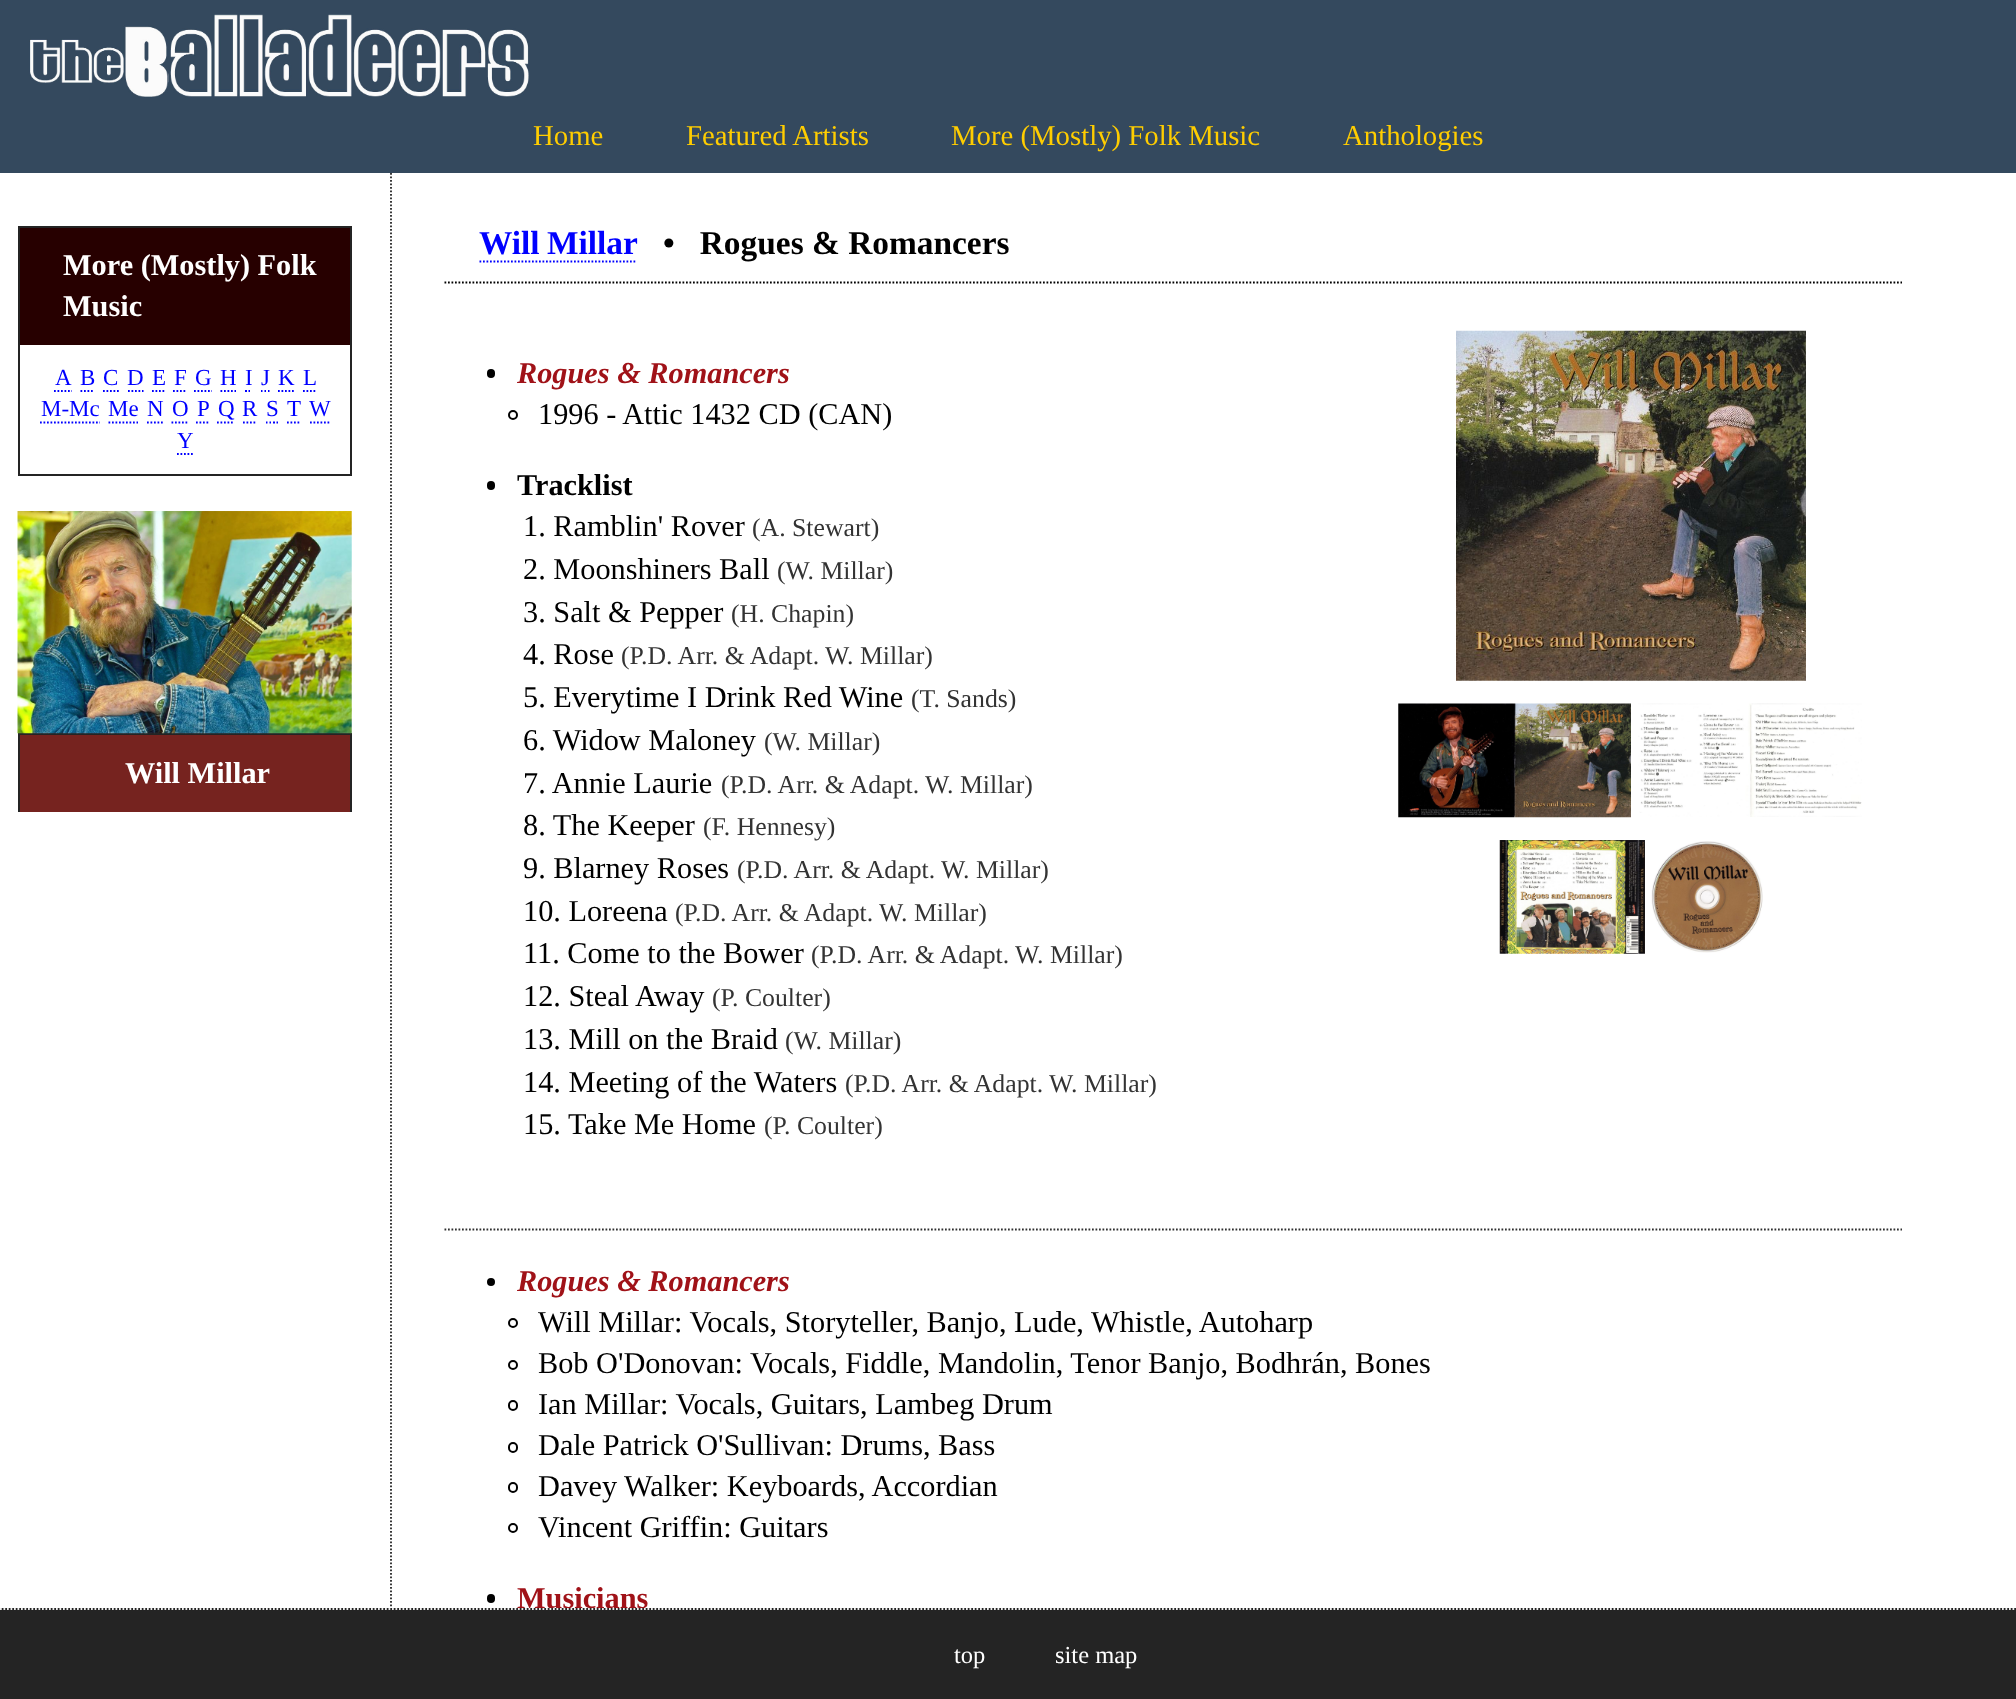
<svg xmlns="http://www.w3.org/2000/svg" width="2016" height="1699">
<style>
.a{font:28.75px Liberation Serif;fill:#ffcd00}
.b{font:bold 30.3px Liberation Serif;fill:#fff}
.c{font:23px Liberation Serif;fill:#00f}
.d{font:bold 33.4px Liberation Serif;fill:#00f}
.e{font:bold 33.4px Liberation Serif;fill:#000}
.f{font:italic bold 30.3px Liberation Serif;fill:#a01218}
.g{font:30.3px Liberation Serif;fill:#000}
.h{font:bold 30.3px Liberation Serif;fill:#000}
.i{font:25.75px Liberation Serif;fill:#333}
.j{font:bold 30.3px Liberation Serif;fill:#a01218}
.k{font:24.5px Liberation Serif;fill:#fff}
</style>
<rect width="100%" height="100%" fill="#fff"/>
<path fill="#34495e" d="M0 0h2016v173H0z"/>
<image href="1.png" x="29" y="14" width="500" height="84"/>
<path fill="#270000" d="M20 228h330v117H20z"/>
<path fill="#242424" d="M18 226h334v2H18z"/>
<path fill="#242424" d="M350 226h2v250H350z"/>
<path fill="#242424" d="M18 226h2v119H18z"/>
<path fill="#242424" d="M18 474h334v2H18z"/>
<path fill="#242424" d="M18 345h2v131H18z"/>
<path fill="none" stroke="#00f" stroke-width="1.8" stroke-dasharray="1.75 1.75" d="M54 391h18"/>
<path fill="none" stroke="#00f" stroke-width="1.8" stroke-dasharray="1.75 1.75" d="M80.5 391h14"/>
<path fill="none" stroke="#00f" stroke-width="1.8" stroke-dasharray="1.75 1.75" d="M103 391h16"/>
<path fill="none" stroke="#00f" stroke-width="1.8" stroke-dasharray="1.75 1.75" d="M128 391h15.5"/>
<path fill="none" stroke="#00f" stroke-width="1.8" stroke-dasharray="1.75 1.75" d="M152 391h14"/>
<path fill="none" stroke="#00f" stroke-width="1.8" stroke-dasharray="1.75 1.75" d="M173 391h14"/>
<path fill="none" stroke="#00f" stroke-width="1.8" stroke-dasharray="1.75 1.75" d="M194 391h18"/>
<path fill="none" stroke="#00f" stroke-width="1.8" stroke-dasharray="1.75 1.75" d="M220.5 391h15.5"/>
<path fill="none" stroke="#00f" stroke-width="1.8" d="M245 391h2m1.5 0h1.5"/>
<path fill="none" stroke="#00f" stroke-width="1.8" d="M261 391h1.5m2 0h1.5m2 0h1.5"/>
<path fill="none" stroke="#00f" stroke-width="1.8" stroke-dasharray="1.75 1.75" d="M278 391h16"/>
<path fill="none" stroke="#00f" stroke-width="1.8" stroke-dasharray="1.75 1.75" d="M303 391h14"/>
<path fill="none" stroke="#00f" stroke-width="1.8" stroke-dasharray="1.75 1.75" d="M40 422.5h60"/>
<path fill="none" stroke="#00f" stroke-width="1.8" stroke-dasharray="1.75 1.75" d="M108.5 422.5h29.5"/>
<path fill="none" stroke="#00f" stroke-width="1.8" stroke-dasharray="1.75 1.75" d="M147 422.5h17.5"/>
<path fill="none" stroke="#00f" stroke-width="1.8" stroke-dasharray="1.75 1.75" d="M171.5 422.5h17.5"/>
<path fill="none" stroke="#00f" stroke-width="1.8" stroke-dasharray="1.75 1.75" d="M196 422.5h14"/>
<path fill="none" stroke="#00f" stroke-width="1.8" stroke-dasharray="1.75 1.75" d="M217 422.5h17.5"/>
<path fill="none" stroke="#00f" stroke-width="1.8" stroke-dasharray="1.75 1.75" d="M243 422.5h14"/>
<path fill="none" stroke="#00f" stroke-width="1.8" d="M266 422.5h1.5m2 0h1.5m2 0h2m1.5 0h1.5"/>
<path fill="none" stroke="#00f" stroke-width="1.8" stroke-dasharray="1.75 1.75" d="M287 422.5h14"/>
<path fill="none" stroke="#00f" stroke-width="1.8" stroke-dasharray="1.75 1.75" d="M310 422.5h21"/>
<path fill="none" stroke="#00f" stroke-width="1.8" stroke-dasharray="1.75 1.75" d="M177 454h17"/>
<path fill="#242424" d="M18 733h334v2H18z"/>
<path fill="#242424" d="M350 733h2v79H350z"/>
<path fill="#242424" d="M18 733h2v79H18z"/>
<image href="2.png" x="17" y="511" width="335" height="223"/>
<path fill="#76231f" d="M20 735h330v77H20z"/>
<path fill="none" stroke="#242424" stroke-width="1.8" stroke-dasharray="1.75 1.75" d="M391 173v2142"/>
<path fill="none" stroke="#000" stroke-width="1.8" stroke-dasharray="1.75 1.75" d="M444.5 282.5h1457.5"/>
<path fill="none" stroke="#00f" stroke-width="1.8" stroke-dasharray="1.75 1.75" d="M479.5 261.5h157.5"/>
<rect fill="#000" x="487" y="369" width="8" height="9" rx="4"/>
<circle fill="none" stroke="#000" stroke-width="2" cx="513" cy="415" r="4"/>
<image href="3.png" x="1456" y="330" width="350" height="351"/>
<image href="4.png" x="1398" y="703" width="233" height="115"/>
<image href="5.png" x="1638" y="703" width="224" height="114"/>
<image href="6.png" x="1499" y="840" width="146" height="114"/>
<image href="7.png" x="1651" y="841" width="112" height="112"/>
<rect fill="#000" x="487" y="481" width="8" height="9" rx="4"/>
<path fill="none" stroke="#303030" stroke-width="1.8" stroke-dasharray="1.75 1.75" d="M444.5 1229.5h1457.5"/>
<circle fill="#000" cx="491" cy="1282" r="4"/>
<circle fill="none" stroke="#000" stroke-width="2" cx="513" cy="1323" r="4"/>
<circle fill="none" stroke="#000" stroke-width="2" cx="513" cy="1365" r="4"/>
<rect fill="none" stroke="#000" stroke-width="2" x="509" y="1401" width="8" height="9" rx="4"/>
<rect fill="none" stroke="#000" stroke-width="2" x="509" y="1443" width="8" height="9" rx="4"/>
<rect fill="none" stroke="#000" stroke-width="2" x="509" y="1483" width="8" height="9" rx="4"/>
<circle fill="none" stroke="#000" stroke-width="2" cx="513" cy="1528" r="4"/>
<rect fill="#000" x="487" y="1594" width="8" height="9" rx="4"/>
<text class="a" x="533" y="145">Home</text>
<text class="a" x="686" y="145">Featured Artists</text>
<text class="a" x="951" y="145">More (Mostly) Folk Music</text>
<text class="a" x="1343" y="145">Anthologies</text>
<text class="b" x="63" y="275">More (Mostly) Folk</text>
<text class="b" x="63" y="316">Music</text>
<text class="c" x="55" y="385">A</text>
<text class="c" x="80" y="385">B</text>
<text class="c" x="103" y="385">C</text>
<text class="c" x="127" y="385">D</text>
<text class="c" x="152" y="385">E</text>
<text class="c" x="174" y="385">F</text>
<text class="c" x="195" y="385">G</text>
<text class="c" x="220" y="385">H</text>
<text class="c" x="245" y="385">I</text>
<text class="c" x="261" y="385">J</text>
<text class="c" x="278" y="385">K</text>
<text class="c" x="303" y="385">L</text>
<text class="c" x="41" y="416">M-Mc</text>
<text class="c" x="108" y="416">Me</text>
<text class="c" x="147" y="416">N</text>
<text class="c" x="172" y="416">O</text>
<text class="c" x="197" y="416">P</text>
<text class="c" x="218" y="416">Q</text>
<text class="c" x="242" y="416">R</text>
<text class="c" x="266" y="416">S</text>
<text class="c" x="287" y="416">T</text>
<text class="c" x="309" y="416">W</text>
<text class="c" x="177" y="448">Y</text>
<text class="b" x="125" y="783">Will Millar</text>
<text class="d" x="479" y="254" word-spacing="-1">Will Millar</text>
<text class="e" xml:space="preserve" x="663" y="254">•   Rogues &amp; Romancers</text>
<text class="f" x="517" y="383">Rogues &amp; Romancers</text>
<text class="g" x="538" y="424">1996 - Attic 1432 CD (CAN)</text>
<text class="h" x="517" y="495">Tracklist</text>
<text class="g" x="523" y="536">1. Ramblin' Rover</text>
<text class="i" x="752" y="536">(A. Stewart)</text>
<text class="g" x="523" y="579">2. Moonshiners Ball</text>
<text class="i" x="777" y="579">(W. Millar)</text>
<text class="g" x="523" y="622">3. Salt &amp; Pepper</text>
<text class="i" x="731" y="622">(H. Chapin)</text>
<text class="g" x="523" y="664">4. Rose</text>
<text class="i" x="621" y="664">(P.D. Arr. &amp; Adapt. W. Millar)</text>
<text class="g" x="523" y="707">5. Everytime I Drink Red Wine</text>
<text class="i" x="911" y="707">(T. Sands)</text>
<text class="g" x="523" y="750">6. Widow Maloney</text>
<text class="i" x="764" y="750">(W. Millar)</text>
<text class="g" x="523" y="793">7. Annie Laurie</text>
<text class="i" x="721" y="793">(P.D. Arr. &amp; Adapt. W. Millar)</text>
<text class="g" x="523" y="835">8. The Keeper</text>
<text class="i" x="703" y="835">(F. Hennesy)</text>
<text class="g" x="523" y="878">9. Blarney Roses</text>
<text class="i" x="737" y="878">(P.D. Arr. &amp; Adapt. W. Millar)</text>
<text class="g" x="523" y="921">10. Loreena</text>
<text class="i" x="675" y="921">(P.D. Arr. &amp; Adapt. W. Millar)</text>
<text class="g" x="523" y="963">11. Come to the Bower</text>
<text class="i" x="811" y="963">(P.D. Arr. &amp; Adapt. W. Millar)</text>
<text class="g" x="523" y="1006">12. Steal Away</text>
<text class="i" x="712" y="1006">(P. Coulter)</text>
<text class="g" x="523" y="1049">13. Mill on the Braid</text>
<text class="i" x="785" y="1049">(W. Millar)</text>
<text class="g" x="523" y="1092">14. Meeting of the Waters</text>
<text class="i" x="845" y="1092">(P.D. Arr. &amp; Adapt. W. Millar)</text>
<text class="g" x="523" y="1134">15. Take Me Home</text>
<text class="i" x="764" y="1134">(P. Coulter)</text>
<text class="f" x="517" y="1291">Rogues &amp; Romancers</text>
<text class="g" x="538" y="1332">Will Millar: Vocals, Storyteller, Banjo, Lude, Whistle, Autoharp</text>
<text class="g" x="538" y="1373">Bob O'Donovan: Vocals, Fiddle, Mandolin, Tenor Banjo, Bodhrán, Bones</text>
<text class="g" x="538" y="1414">Ian Millar: Vocals, Guitars, Lambeg Drum</text>
<text class="g" x="538" y="1455">Dale Patrick O'Sullivan: Drums, Bass</text>
<text class="g" x="538" y="1496">Davey Walker: Keyboards, Accordian</text>
<text class="g" x="538" y="1537">Vincent Griffin: Guitars</text>
<text class="j" x="517" y="1608">Musicians</text>
<path fill="#242424" d="M0 1608h2016v91H0z"/>
<path fill="none" stroke="#eee" stroke-width="1.8" stroke-dasharray="1.75 1.75" d="M0 1609h2016"/>
<text class="k" x="954" y="1663">top</text>
<text class="k" x="1055" y="1663">site map</text>
</svg>
